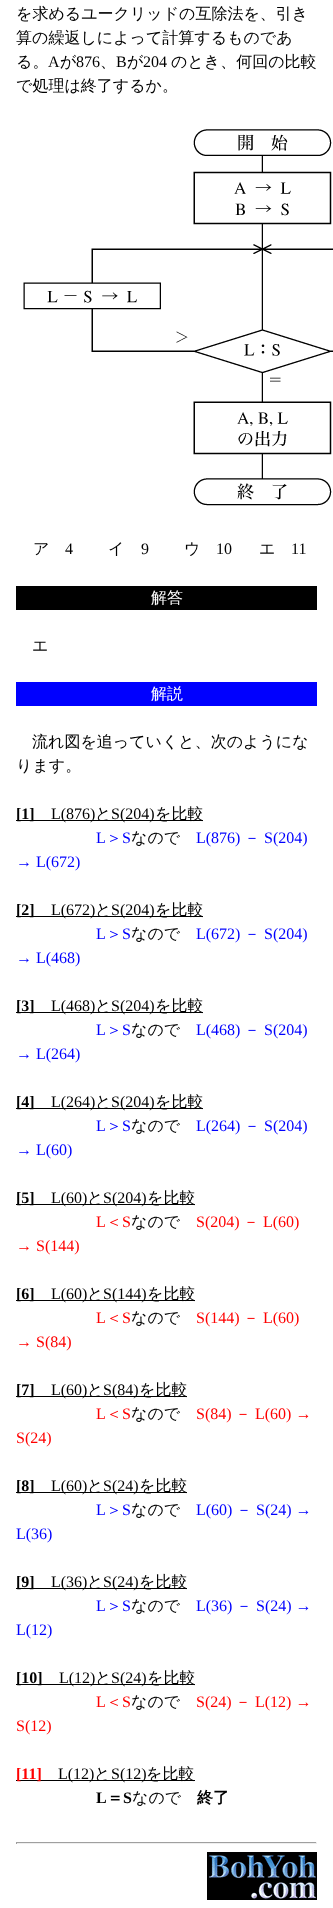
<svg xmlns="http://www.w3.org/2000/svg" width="333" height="1908">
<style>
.a{font:500 16px WenQuanYi Zen Hei;fill:#000}
.b{font:16px Liberation Serif;fill:#000}
.c{font:500 16px WenQuanYi Zen Hei;fill:#fff}
.d{font:bold 16px Liberation Serif;fill:#000}
.e{font:16px Liberation Serif;fill:#00f}
.f{font:500 16px WenQuanYi Zen Hei;fill:#00f}
.g{font:16px Liberation Serif;fill:#f00}
.h{font:500 16px WenQuanYi Zen Hei;fill:#f00}
.i{font:bold 16px Liberation Serif;fill:#f00}
.j{font:bold 16px WenQuanYi Zen Hei;fill:#000}
</style>
<rect width="100%" height="100%" fill="#fff"/>
<image href="1.png" x="23" y="129" width="310" height="377"/>
<path fill="#000" d="M16 586h301v24H16z"/>
<path fill="#00f" d="M16 682h301v24H16z"/>
<path fill="#000" d="M16 820h187v1H16z"/>
<path fill="#000" d="M16 916h187v1H16z"/>
<path fill="#000" d="M16 1012h187v1H16z"/>
<path fill="#000" d="M16 1108h187v1H16z"/>
<path fill="#000" d="M16 1204h179v1H16z"/>
<path fill="#000" d="M16 1300h179v1H16z"/>
<path fill="#000" d="M16 1396h171v1H16z"/>
<path fill="#000" d="M16 1492h171v1H16z"/>
<path fill="#000" d="M16 1588h171v1H16z"/>
<path fill="#000" d="M16 1684h179v1H16z"/>
<path fill="#000" d="M16 1780h179v1H16z"/>
<path fill="#9f9f9f" d="M16 1842h301v1H16z"/>
<path fill="#eee" d="M316 1842h1v2H316z"/>
<path fill="#eee" d="M16 1843h301v1H16z"/>
<path fill="#9f9f9f" d="M16 1842h1v2H16z"/>
<image href="2.png" x="207" y="1852" width="110" height="48"/>
<text class="a" x="16" y="19">を求めるユークリッドの互除法を、引き</text>
<text class="a" x="16" y="43">算の繰返しによって計算するものであ</text>
<text class="a" x="16" y="67">る。</text>
<text class="b" x="48" y="67">A</text>
<text class="a" x="60" y="67">が</text>
<text class="b" x="76" y="67">876</text>
<text class="a" x="100" y="67">、</text>
<text class="b" x="116" y="67">B</text>
<text class="a" x="127" y="67">が</text>
<text class="b" x="143" y="67">204</text>
<text class="a" x="171" y="67">のとき、何回の比較</text>
<text class="a" x="16" y="91">で処理は終了するか。</text>
<text class="a" x="33" y="554">ア</text>
<text class="b" x="65" y="554">4</text>
<text class="a" x="108" y="554">イ</text>
<text class="b" x="141" y="554">9</text>
<text class="a" x="184" y="554">ウ</text>
<text class="b" x="216" y="554">10</text>
<text class="a" x="259" y="554">エ</text>
<text class="b" x="291" y="554">11</text>
<text class="c" x="151" y="603">解答</text>
<text class="a" x="32" y="651">エ</text>
<text class="c" x="151" y="699">解説</text>
<text class="a" x="32" y="747">流れ図を追っていくと、次のようにな</text>
<text class="a" x="16" y="771">ります。</text>
<text class="d" x="16" y="819">[1]</text>
<text class="b" x="51" y="819">L(876)</text>
<text class="a" x="95" y="819">と</text>
<text class="b" x="111" y="819">S(204)</text>
<text class="a" x="155" y="819">を比較</text>
<text class="e" x="96" y="843">L</text>
<text class="f" x="106" y="843">＞</text>
<text class="e" x="122" y="843">S</text>
<text class="a" x="131" y="843">なので</text>
<text class="e" x="196" y="843">L(876)</text>
<text class="f" x="244" y="843">－</text>
<text class="e" x="264" y="843">S(204)</text>
<text class="e" x="16" y="867">→ L(672)</text>
<text class="d" x="16" y="915">[2]</text>
<text class="b" x="51" y="915">L(672)</text>
<text class="a" x="95" y="915">と</text>
<text class="b" x="111" y="915">S(204)</text>
<text class="a" x="155" y="915">を比較</text>
<text class="e" x="96" y="939">L</text>
<text class="f" x="106" y="939">＞</text>
<text class="e" x="122" y="939">S</text>
<text class="a" x="131" y="939">なので</text>
<text class="e" x="196" y="939">L(672)</text>
<text class="f" x="244" y="939">－</text>
<text class="e" x="264" y="939">S(204)</text>
<text class="e" x="16" y="963">→ L(468)</text>
<text class="d" x="16" y="1011">[3]</text>
<text class="b" x="51" y="1011">L(468)</text>
<text class="a" x="95" y="1011">と</text>
<text class="b" x="111" y="1011">S(204)</text>
<text class="a" x="155" y="1011">を比較</text>
<text class="e" x="96" y="1035">L</text>
<text class="f" x="106" y="1035">＞</text>
<text class="e" x="122" y="1035">S</text>
<text class="a" x="131" y="1035">なので</text>
<text class="e" x="196" y="1035">L(468)</text>
<text class="f" x="244" y="1035">－</text>
<text class="e" x="264" y="1035">S(204)</text>
<text class="e" x="16" y="1059">→ L(264)</text>
<text class="d" x="16" y="1107">[4]</text>
<text class="b" x="51" y="1107">L(264)</text>
<text class="a" x="95" y="1107">と</text>
<text class="b" x="111" y="1107">S(204)</text>
<text class="a" x="155" y="1107">を比較</text>
<text class="e" x="96" y="1131">L</text>
<text class="f" x="106" y="1131">＞</text>
<text class="e" x="122" y="1131">S</text>
<text class="a" x="131" y="1131">なので</text>
<text class="e" x="196" y="1131">L(264)</text>
<text class="f" x="244" y="1131">－</text>
<text class="e" x="264" y="1131">S(204)</text>
<text class="e" x="16" y="1155">→ L(60)</text>
<text class="d" x="16" y="1203">[5]</text>
<text class="b" x="51" y="1203">L(60)</text>
<text class="a" x="87" y="1203">と</text>
<text class="b" x="103" y="1203">S(204)</text>
<text class="a" x="147" y="1203">を比較</text>
<text class="g" x="96" y="1227">L</text>
<text class="h" x="106" y="1227">＜</text>
<text class="g" x="122" y="1227">S</text>
<text class="a" x="131" y="1227">なので</text>
<text class="g" x="196" y="1227">S(204)</text>
<text class="h" x="243" y="1227">－</text>
<text class="g" x="263" y="1227">L(60)</text>
<text class="g" x="16" y="1251">→ S(144)</text>
<text class="d" x="16" y="1299">[6]</text>
<text class="b" x="51" y="1299">L(60)</text>
<text class="a" x="87" y="1299">と</text>
<text class="b" x="103" y="1299">S(144)</text>
<text class="a" x="147" y="1299">を比較</text>
<text class="g" x="96" y="1323">L</text>
<text class="h" x="106" y="1323">＜</text>
<text class="g" x="122" y="1323">S</text>
<text class="a" x="131" y="1323">なので</text>
<text class="g" x="196" y="1323">S(144)</text>
<text class="h" x="243" y="1323">－</text>
<text class="g" x="263" y="1323">L(60)</text>
<text class="g" x="16" y="1347">→ S(84)</text>
<text class="d" x="16" y="1395">[7]</text>
<text class="b" x="51" y="1395">L(60)</text>
<text class="a" x="87" y="1395">と</text>
<text class="b" x="103" y="1395">S(84)</text>
<text class="a" x="139" y="1395">を比較</text>
<text class="g" x="96" y="1419">L</text>
<text class="h" x="106" y="1419">＜</text>
<text class="g" x="122" y="1419">S</text>
<text class="a" x="131" y="1419">なので</text>
<text class="g" x="196" y="1419">S(84)</text>
<text class="h" x="235" y="1419">－</text>
<text class="g" x="255" y="1419">L(60) →</text>
<text class="g" x="16" y="1443">S(24)</text>
<text class="d" x="16" y="1491">[8]</text>
<text class="b" x="51" y="1491">L(60)</text>
<text class="a" x="87" y="1491">と</text>
<text class="b" x="103" y="1491">S(24)</text>
<text class="a" x="139" y="1491">を比較</text>
<text class="e" x="96" y="1515">L</text>
<text class="f" x="106" y="1515">＞</text>
<text class="e" x="122" y="1515">S</text>
<text class="a" x="131" y="1515">なので</text>
<text class="e" x="196" y="1515">L(60)</text>
<text class="f" x="236" y="1515">－</text>
<text class="e" x="256" y="1515">S(24) →</text>
<text class="e" x="16" y="1539">L(36)</text>
<text class="d" x="16" y="1587">[9]</text>
<text class="b" x="51" y="1587">L(36)</text>
<text class="a" x="87" y="1587">と</text>
<text class="b" x="103" y="1587">S(24)</text>
<text class="a" x="139" y="1587">を比較</text>
<text class="e" x="96" y="1611">L</text>
<text class="f" x="106" y="1611">＞</text>
<text class="e" x="122" y="1611">S</text>
<text class="a" x="131" y="1611">なので</text>
<text class="e" x="196" y="1611">L(36)</text>
<text class="f" x="236" y="1611">－</text>
<text class="e" x="256" y="1611">S(24) →</text>
<text class="e" x="16" y="1635">L(12)</text>
<text class="d" x="16" y="1683">[10]</text>
<text class="b" x="59" y="1683">L(12)</text>
<text class="a" x="95" y="1683">と</text>
<text class="b" x="111" y="1683">S(24)</text>
<text class="a" x="147" y="1683">を比較</text>
<text class="g" x="96" y="1707">L</text>
<text class="h" x="106" y="1707">＜</text>
<text class="g" x="122" y="1707">S</text>
<text class="a" x="131" y="1707">なので</text>
<text class="g" x="196" y="1707">S(24)</text>
<text class="h" x="235" y="1707">－</text>
<text class="g" x="255" y="1707">L(12) →</text>
<text class="g" x="16" y="1731">S(12)</text>
<text class="i" x="16" y="1779">[11]</text>
<text class="b" x="58" y="1779">L(12)</text>
<text class="a" x="94" y="1779">と</text>
<text class="b" x="111" y="1779">S(12)</text>
<text class="a" x="146" y="1779">を比較</text>
<text class="d" x="96" y="1803">L</text>
<text class="j" x="107" y="1803">＝</text>
<text class="d" x="123" y="1803">S</text>
<text class="a" x="132" y="1803">なので</text>
<text class="j" x="197" y="1803">終了</text>
</svg>
